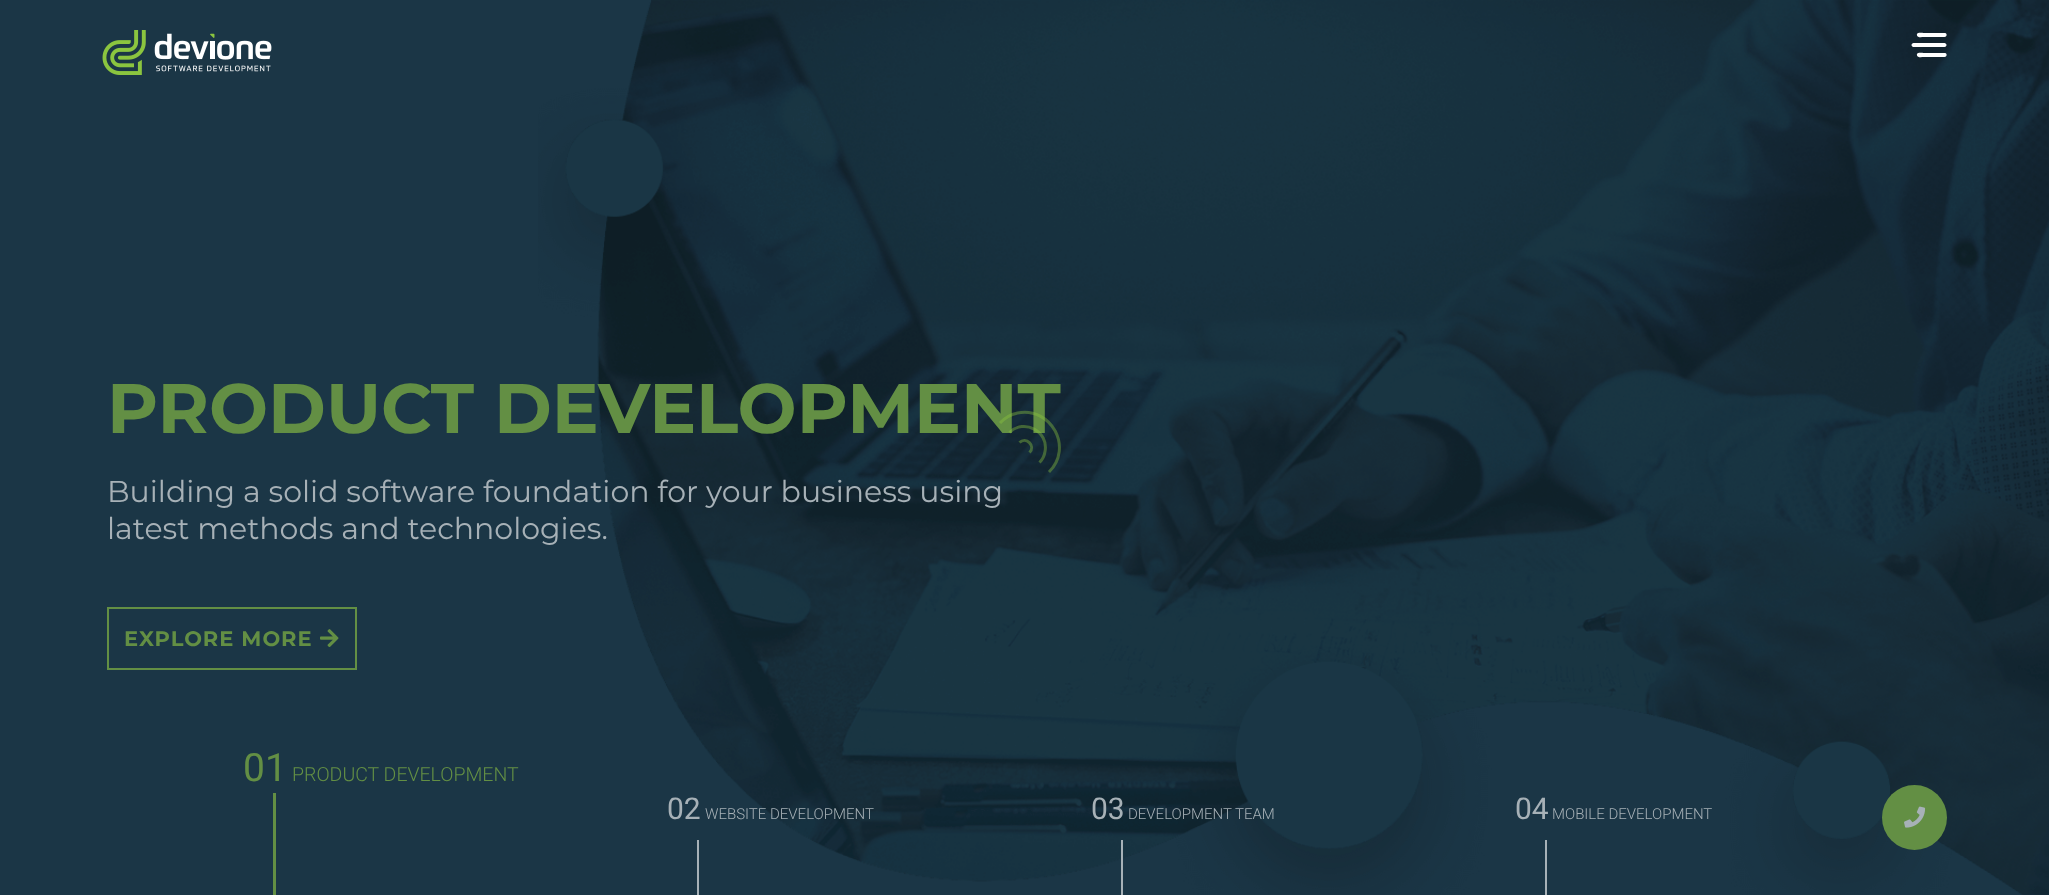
<svg xmlns="http://www.w3.org/2000/svg" width="2049" height="895">
<style>
.a{font:bold 70px Montserrat;fill:#638f44}
.b{font:30px Montserrat;fill:#a7b1b7}
.c{font:bold 21px Montserrat;letter-spacing:1px;fill:#638f44}
.d{font:39px Roboto;fill:#638f44}
.e{font:300 19.5px Roboto;fill:#638f44}
.f{font:30px Roboto;fill:#a7b1b7}
.g{font:300 15px Roboto;fill:#a7b1b7}
</style>
<rect width="100%" height="100%" fill="#1b3646"/>
<image href="1.png" x="102" y="30" width="170" height="45"/>
<image href="2.png" x="538" y="0" width="1511" height="895"/>
<path fill="#fff" d="M1944.5 57h-21.5c-1 0-5.5 1-6-1.5c-1-3.5 5-2.5 6-2.5h22c2.5 .5 2 4-.5 4zm0-10h-31c-1 0-2-1-2-2c0-1 1-2 2-2h31c1 0 2 1 2 2c0 1-1 2-2 2zm0-10h-21.5c-1 0-5.5 1-6-1.5c-1-3.5 5-2.5 6-2.5h22c2.5 .5 2 4-.5 4z"/>
<path fill="none" stroke="#638f44" stroke-width="2" d="M108 608h248v61H108z"/>
<image href="3.png" x="320" y="629" width="19" height="18"/>
<path fill="#638f44" d="M273 793h3v102H273z"/>
<path fill="#a7b1b7" d="M697 840h2v55H697z"/>
<path fill="#a7b1b7" d="M1121 840h2v55H1121z"/>
<path fill="#a7b1b7" d="M1545 840h2v55H1545z"/>
<circle fill="#638f44" cx="1914.5" cy="817.5" r="32.5"/>
<image href="4.png" x="1904" y="806" width="22" height="22"/>
<text class="a" x="107" y="433">PRODUCT DEVELOPMENT</text>
<text class="b" x="107" y="502">Building a solid software foundation for your business using</text>
<text class="b" x="107" y="539">latest methods and technologies.</text>
<text class="c" x="124" y="646">EXPLORE MORE</text>
<text class="d" x="243" y="781">01</text>
<text class="e" x="292" y="781">PRODUCT DEVELOPMENT</text>
<text class="f" x="667" y="819">02</text>
<text class="g" x="705" y="819">WEBSITE DEVELOPMENT</text>
<text class="f" x="1091" y="819">03</text>
<text class="g" x="1128" y="819">DEVELOPMENT TEAM</text>
<text class="f" x="1515" y="819">04</text>
<text class="g" x="1552" y="819">MOBILE DEVELOPMENT</text>
<path fill="none" stroke="#8dc63f66" stroke-width="3" d="M1000 423c4.5-5 11-8.5 17.5-10c34-6.5 56 35 31.5 59"/>
<path fill="none" stroke="#8dc63f66" stroke-width="3" d="M1009.5 432.5c14.5-14.5 39.5-1 35.5 19c-.5 4-2.5 8-5.5 11"/>
<path fill="none" stroke="#8dc63f66" stroke-width="3" d="M1019.5 442.5c6.5-6.5 16.5 3.5 10 10"/>
</svg>
